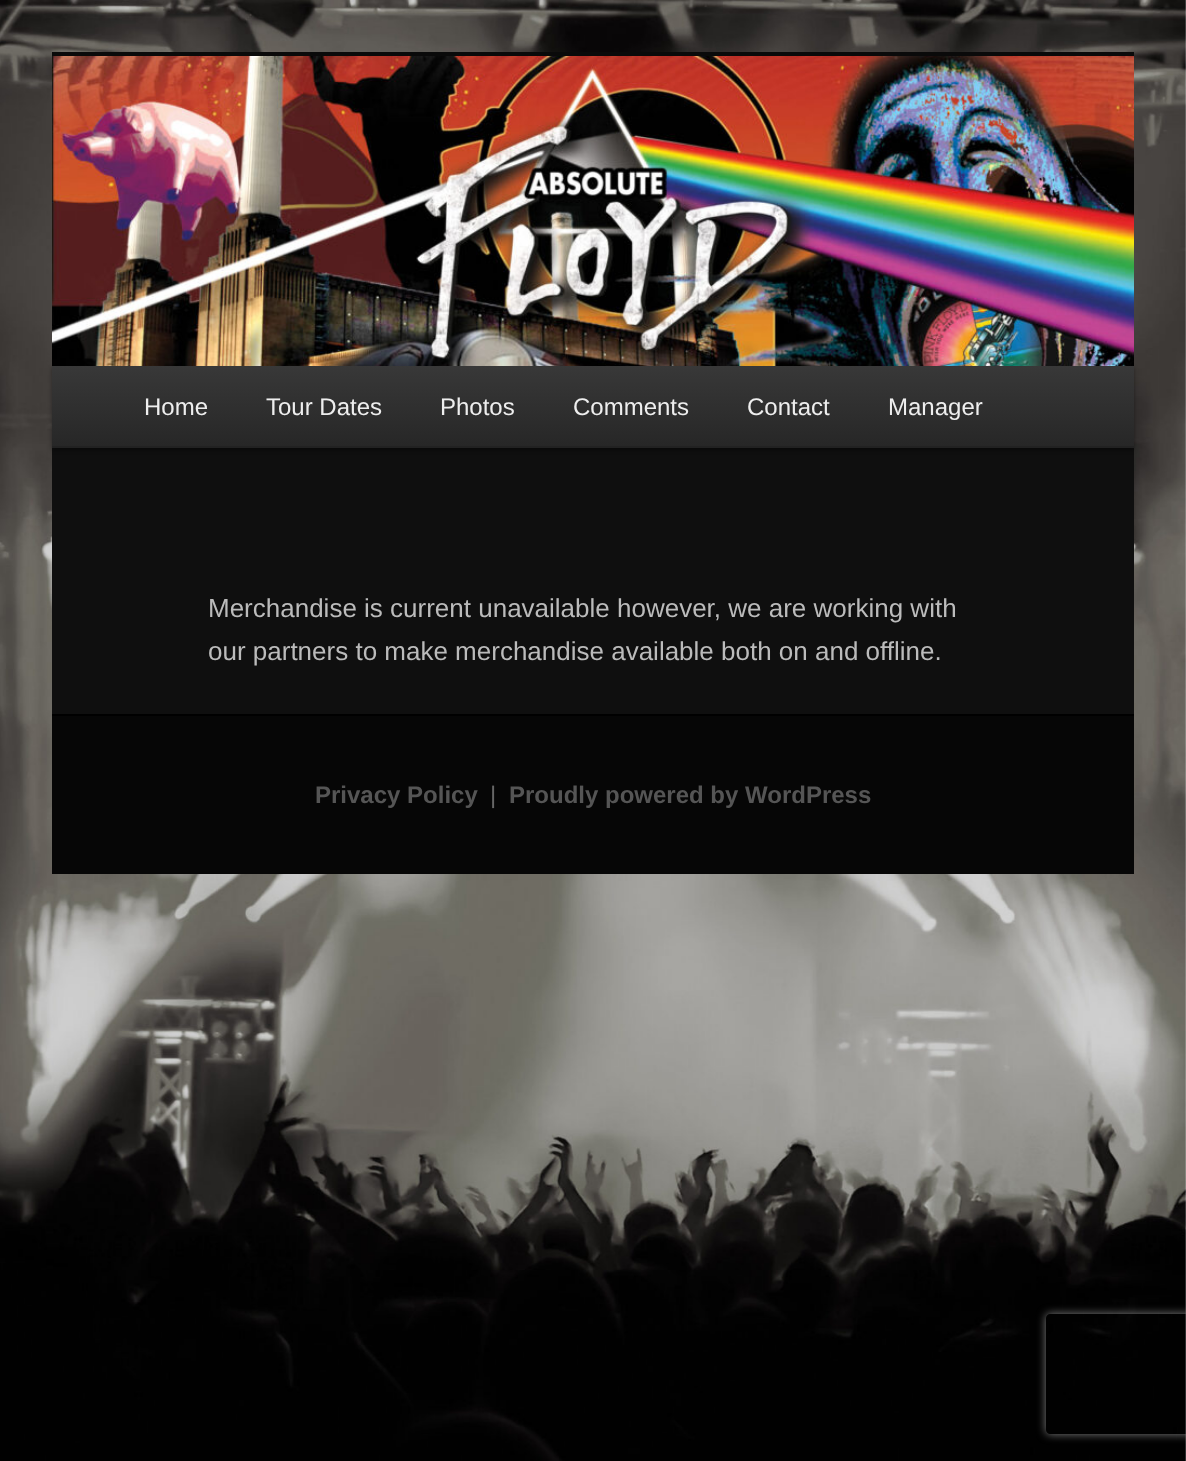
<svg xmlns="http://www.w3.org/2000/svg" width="1186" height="1461">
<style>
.a{font:24px Liberation Sans;fill:#eee}
.b{font:26px Liberation Sans;fill:#bbb}
.c{font:bold 24px Liberation Sans;fill:#555}
.d{font:24px Liberation Sans;fill:#666}
</style>
<defs>
<linearGradient id="g1" gradientUnits="userSpaceOnUse" x1="593" y1="366" x2="593" y2="446"><stop offset="0" stop-color="#383838"/><stop offset="1" stop-color="#272727"/></linearGradient>
<clipPath id="clip1"><path d="M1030 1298h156v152h-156zm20 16h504c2 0 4 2 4 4v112c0 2-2 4-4 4h-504c-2 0-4-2-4-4v-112c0-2 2-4 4-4z" clip-rule="evenodd"/></clipPath>
</defs>
<rect width="100%" height="100%" fill="#fff"/>
<image href="1.png" x="0" y="0" width="1186" height="1461"/>
<path fill="#0f0f0f" d="M52 448h1082v266H52z"/>
<path fill="#0a0a0a" d="M52 52h1082v4H52z"/>
<path fill="#00000066" filter="blur(2px)" d="M52 368h1082v82H52z"/>
<image href="2.png" x="52" y="56" width="1082" height="310"/>
<path fill="url(#g1)" d="M52 366h1082v80H52z"/>
<path fill="#222" d="M52 446h1082v2H52z"/>
<path fill="#060606" d="M52 716h1082v158H52z"/>
<path fill="#000" d="M52 714h1082v2H52z"/>
<g clip-path="url(#clip1)">
<rect fill="#808080" filter="blur(5px)" x="1046" y="1314" width="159" height="120" rx="4"/>
</g>
<text class="a" x="144" y="415">Home</text>
<text class="a" x="266" y="415">Tour Dates</text>
<text class="a" x="440" y="415">Photos</text>
<text class="a" x="573" y="415">Comments</text>
<text class="a" x="747" y="415">Contact</text>
<text class="a" x="888" y="415">Manager</text>
<text class="b" x="208" y="617">Merchandise is current unavailable however, we are working with</text>
<text class="b" x="208" y="660">our partners to make merchandise available both on and offline.</text>
<text class="c" x="315" y="803">Privacy Policy</text>
<text class="d" x="490" y="803">|</text>
<text class="c" x="509" y="803">Proudly powered by WordPress</text>
</svg>
